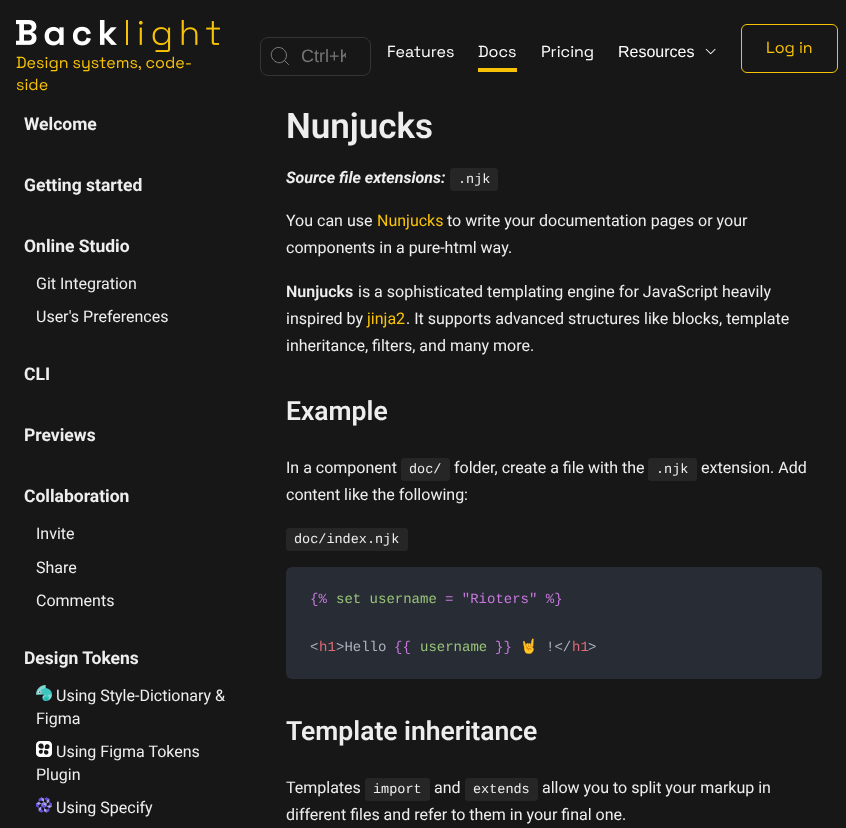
<svg xmlns="http://www.w3.org/2000/svg" width="846" height="828">
<style>
.a{font:16px Space Grotesk;fill:#f8c307}
.b{font:18px Liberation Sans;fill:#757575}
.c{font:16px Space Grotesk;fill:#fff}
.d{font:16px Liberation Sans;fill:#fff}
.e{font:bold 17.5px Roboto;fill:#eee}
.f{font:16px Roboto;fill:#eee}
.g{font:600 35px Roboto;fill:#eee}
.h{font:italic bold 16px Roboto;fill:#eee}
.i{font:13.5px Liberation Mono;fill:#eee}
.j{font:16px Roboto;fill:#f8c307}
.k{font:600 16px Roboto;fill:#eee}
.l{font:600 26.5px Roboto;fill:#eee}
.m{font:14px Liberation Mono;fill:#c678dd}
.n{font:14px Liberation Mono;fill:#98c379}
.o{font:14px Liberation Mono;fill:#abb2bf}
.p{font:14px Liberation Mono;fill:#e06c75}
.q{font:14px Noto Color Emoji;fill:#abb2bf}
</style>
<defs>
<clipPath id="clip1"><path d="M301 46h45v21H301z"/></clipPath>
</defs>
<rect width="100%" height="100%" fill="#171717"/>
<image href="1.png" x="16" y="20" width="204" height="32"/>
<rect fill="none" stroke="#343436" x="260.5" y="37.5" width="110" height="38" rx="7.5"/>
<path fill="none" stroke="#808080" stroke-linecap="round" stroke-linejoin="round" d="M284.5 60.5l4 4l-4-4c-7 7-18-4-11-11c7.5-6.5 17.5 4 11 11z"/>
<path fill="#f8c307" d="M478 68h39v4H478z"/>
<image href="2.png" x="705" y="48" width="11" height="7"/>
<rect fill="none" stroke="#f8c307" x="741.5" y="24.5" width="96" height="48" rx="5.5"/>
<image href="3.png" x="36" y="685" width="16" height="16"/>
<image href="4.png" x="36" y="741" width="16" height="16"/>
<image href="5.png" x="36" y="797" width="16" height="16"/>
<rect fill="#262626" x="450" y="168" width="48" height="23" rx="3"/>
<rect fill="#262626" x="401" y="458" width="49" height="23" rx="3"/>
<rect fill="#262626" x="648" y="458" width="49" height="23" rx="3"/>
<rect fill="#262626" x="286" y="528" width="122" height="23" rx="3"/>
<rect fill="#282c34" x="286" y="567" width="536" height="112" rx="6"/>
<rect fill="#262626" x="365" y="778" width="65" height="23" rx="3"/>
<rect fill="#262626" x="465" y="778" width="73" height="23" rx="3"/>
<text class="a" x="16" y="68">Design systems, code-</text>
<text class="a" x="16" y="90">side</text>
<g clip-path="url(#clip1)">
<text class="b" x="301" y="62">Ctrl+K</text>
</g>
<text class="c" x="387" y="57">Features</text>
<text class="c" x="478" y="57">Docs</text>
<text class="c" x="541" y="57">Pricing</text>
<text class="d" x="618" y="57">Resources</text>
<text class="a" x="766" y="53">Log in</text>
<text class="e" x="24" y="130">Welcome</text>
<text class="e" x="24" y="191">Getting started</text>
<text class="e" x="24" y="252">Online Studio</text>
<text class="f" x="36" y="289">Git Integration</text>
<text class="f" x="36" y="322">User's Preferences</text>
<text class="e" x="24" y="380">CLI</text>
<text class="e" x="24" y="441">Previews</text>
<text class="e" x="24" y="502">Collaboration</text>
<text class="f" x="36" y="539">Invite</text>
<text class="f" x="36" y="573">Share</text>
<text class="f" x="36" y="606">Comments</text>
<text class="e" x="24" y="664">Design Tokens</text>
<text class="f" x="56" y="701">Using Style-Dictionary &amp;</text>
<text class="f" x="36" y="724">Figma</text>
<text class="f" x="56" y="757">Using Figma Tokens</text>
<text class="f" x="36" y="780">Plugin</text>
<text class="f" x="56" y="813">Using Specify</text>
<text class="g" x="286" y="138">Nunjucks</text>
<text class="h" x="286" y="183">Source file extensions:</text>
<text class="i" x="458" y="183">.njk</text>
<text class="f" x="286" y="226">You can use</text>
<text class="j" x="377" y="226">Nunjucks</text>
<text class="f" x="447" y="226">to write your documentation pages or your</text>
<text class="f" x="286" y="253">components in a pure-html way.</text>
<text class="k" x="286" y="297">Nunjucks</text>
<text class="f" x="358" y="297">is a sophisticated templating engine for JavaScript heavily</text>
<text class="f" x="286" y="324">inspired by</text>
<text class="j" x="367" y="324">jinja2</text>
<text class="f" x="406" y="324">. It supports advanced structures like blocks, template</text>
<text class="f" x="286" y="351">inheritance, filters, and many more.</text>
<text class="l" x="286" y="420">Example</text>
<text class="f" x="286" y="473">In a component</text>
<text class="i" x="409" y="473">doc/</text>
<text class="f" x="454" y="473">folder, create a file with the</text>
<text class="i" x="656" y="473">.njk</text>
<text class="f" x="701" y="473">extension. Add</text>
<text class="f" x="286" y="500">content like the following:</text>
<text class="i" x="294" y="543">doc/index.njk</text>
<text class="m" x="310" y="603">{%</text>
<text class="n" x="336" y="603">set username</text>
<text class="m" x="445" y="603">= "Rioters" %}</text>
<text class="o" x="310" y="651">&lt;</text>
<text class="p" x="319" y="651">h1</text>
<text class="o" x="336" y="651">&gt;Hello</text>
<text class="m" x="394" y="651">{{</text>
<text class="n" x="420" y="651">username</text>
<text class="m" x="495" y="651">}}</text>
<text class="q" x="520" y="651">🤘</text>
<text class="o" x="546" y="651">!&lt;/</text>
<text class="p" x="572" y="651">h1</text>
<text class="o" x="588" y="651">&gt;</text>
<text class="l" x="286" y="740">Template inheritance</text>
<text class="f" x="286" y="793">Templates</text>
<text class="i" x="373" y="793">import</text>
<text class="f" x="434" y="793">and</text>
<text class="i" x="473" y="793">extends</text>
<text class="f" x="542" y="793">allow you to split your markup in</text>
<text class="f" x="286" y="820">different files and refer to them in your final one.</text>
</svg>
